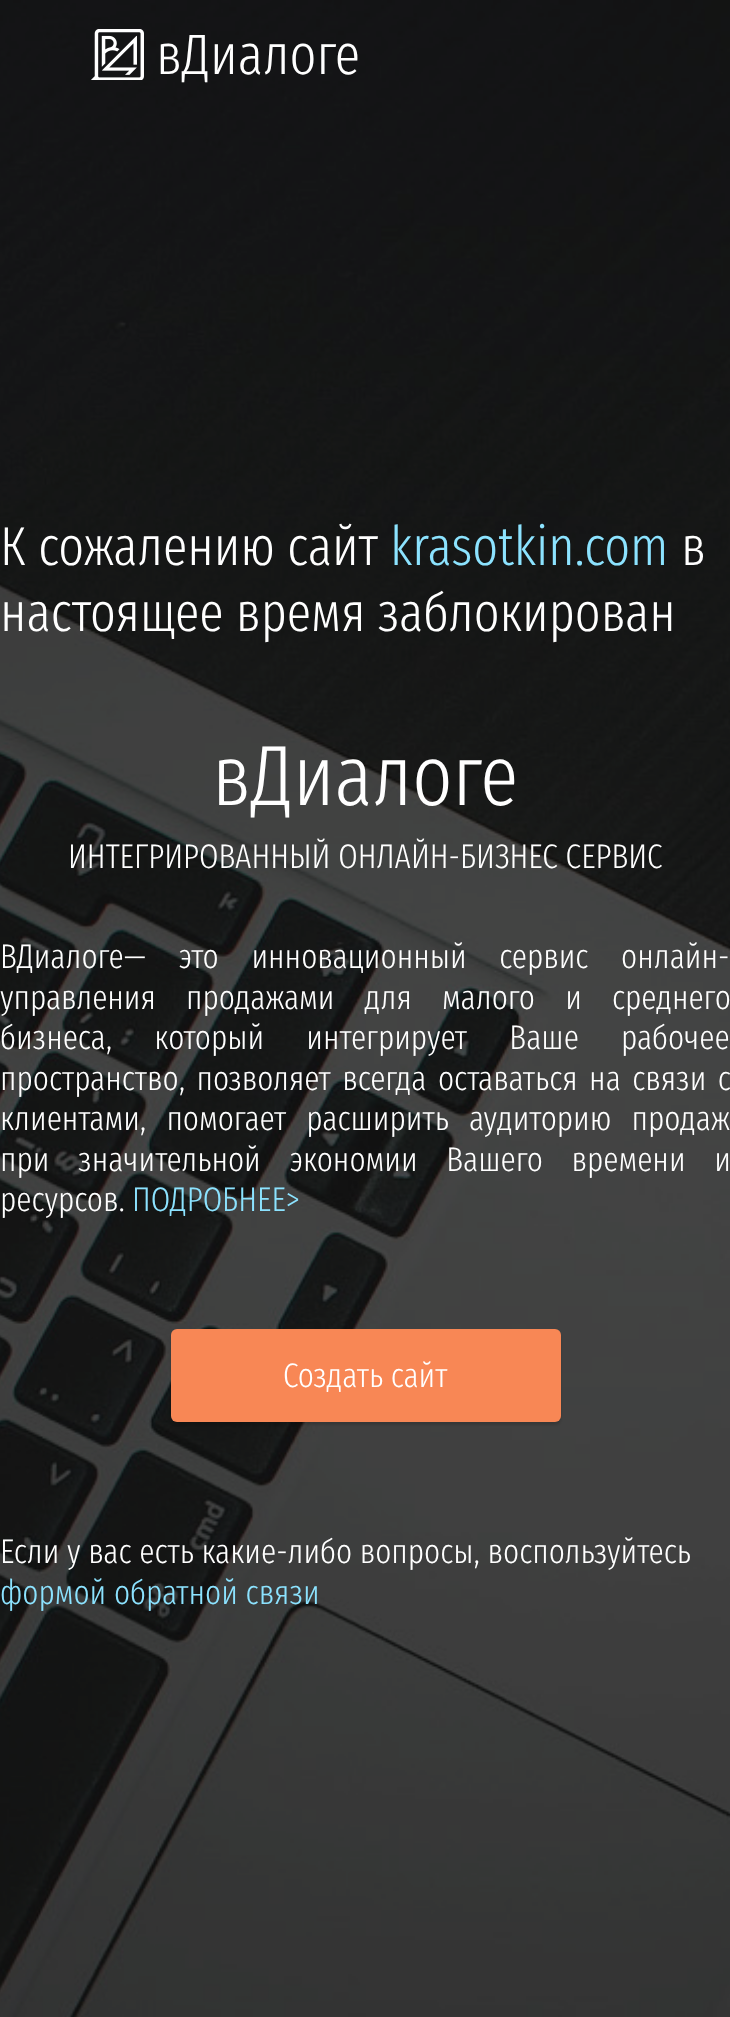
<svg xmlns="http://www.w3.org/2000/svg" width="730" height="2017">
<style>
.a{font:300 57px Fira Sans Extra Condensed;fill:#fff}
.b{font:300 54.75px Fira Sans Extra Condensed;fill:#fff}
.c{font:300 54.75px Fira Sans Extra Condensed;fill:#8ce3ff}
.d{font:300 85.5px Fira Sans Extra Condensed;fill:#fff}
.e{font:300 34.2px Fira Sans Extra Condensed;fill:#fff}
.f{font:300 34.2px Fira Sans Extra Condensed;fill:#8ce3ff}
</style>
<rect width="100%" height="100%" fill="#fff"/>
<image href="1.png" x="0" y="0" width="730" height="2017"/>
<image href="2.png" x="91" y="29" width="53" height="51"/>
<rect fill="#00000024" filter="blur(1px)" x="171" y="1332" width="390" height="93" rx="6"/>
<rect fill="#f88755" x="171" y="1329" width="390" height="93" rx="6"/>
<text class="a" x="156" y="74">вДиалоге</text>
<text class="b" x="0" y="565">К сожалению сайт</text>
<text class="c" x="390" y="565">krasotkin.com</text>
<text class="b" x="681" y="565">в</text>
<text class="b" x="0" y="631">настоящее время заблокирован</text>
<text class="d" x="212" y="805">вДиалоге</text>
<text class="e" x="68" y="868">ИНТЕГРИРОВАННЫЙ ОНЛАЙН-БИЗНЕС СЕРВИС</text>
<text class="e" x="0" y="968" word-spacing="25">ВДиалоге— это инновационный сервис онлайн-</text>
<text class="e" x="0" y="1009" word-spacing="22.5">управления продажами для малого и среднего</text>
<text class="e" x="0" y="1049" word-spacing="34.5">бизнеса, который интегрирует Ваше рабочее</text>
<text class="e" x="0" y="1090" word-spacing="3.75">пространство, позволяет всегда оставаться на связи с</text>
<text class="e" x="0" y="1130" word-spacing="12.5">клиентами, помогает расширить аудиторию продаж</text>
<text class="e" x="0" y="1171" word-spacing="21">при значительной экономии Вашего времени и</text>
<text class="e" x="0" y="1211">ресурсов.</text>
<text class="f" x="132" y="1211">ПОДРОБНЕЕ&gt;</text>
<text class="e" x="283" y="1387">Создать сайт</text>
<text class="e" x="0" y="1563">Если у вас есть какие-либо вопросы, воспользуйтесь</text>
<text class="f" x="0" y="1604">формой обратной связи</text>
</svg>
